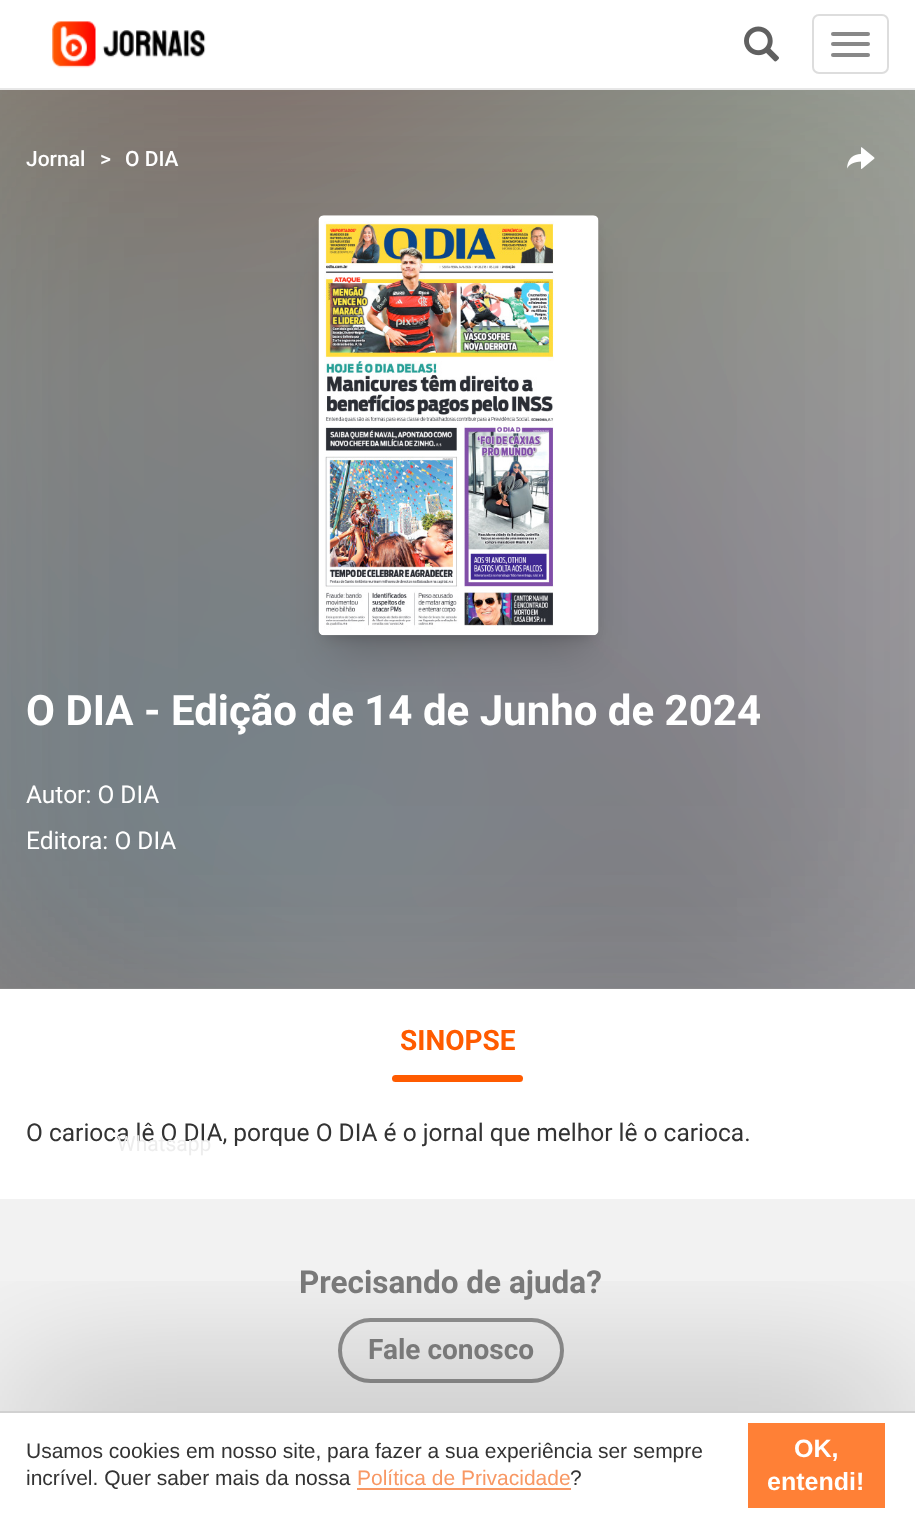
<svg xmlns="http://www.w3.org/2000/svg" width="915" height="1519">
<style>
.a{font:500 21px Roboto;fill:#fff}
.b{font:bold 42px Roboto;fill:#fff}
.c{font:24.5px Roboto;fill:#fff}
.d{font:bold 28px Roboto;fill:#ff5b00}
.e{font:24.5px Roboto;fill:#333}
.f{font:21px Liberation Sans;fill:#333}
.g{font:21px Liberation Sans;fill:#f89864}
.h{font:bold 25px Liberation Sans;fill:#fff}
.i{font:21px Roboto;fill:#ededed}
.j{font:bold 31.5px Roboto;fill:#797979}
.k{font:bold 28px Roboto;fill:#797979}
</style>
<defs>
<clipPath id="clip1"><path d="M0 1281h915v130H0z"/></clipPath>
</defs>
<rect width="100%" height="100%" fill="#fff"/>
<path fill="#e7e7e7" d="M0 88h915v2H0z"/>
<image href="1.png" x="52" y="21" width="154" height="47"/>
<image href="2.png" x="744" y="26" width="35" height="36"/>
<rect fill="none" stroke="#ddd" stroke-width="2" x="813" y="15" width="75" height="58" rx="6"/>
<rect fill="#888" x="831" y="32" width="39" height="4" rx="2"/>
<rect fill="#888" x="831" y="42" width="39" height="4" rx="2"/>
<rect fill="#888" x="831" y="53" width="39" height="4" rx="2"/>
<path fill="#a1a1a1" d="M0 90h915v899H0z"/>
<image href="3.png" x="0" y="90" width="915" height="899"/>
<image href="4.png" x="847" y="147" width="28" height="22"/>
<path fill="#00000033" filter="blur(7px)" d="M326 229h266v406H326z"/>
<path fill="#00000033" filter="blur(21px)" d="M333 257h252v392H333z"/>
<image href="5.png" x="318" y="215" width="281" height="421"/>
<rect fill="#ff5b00" x="392" y="1075" width="131" height="7" rx="3.5"/>
<path fill="#f2f2f2" d="M0 1199h915v212H0z"/>
<rect fill="none" stroke="#919191" stroke-width="4" x="340" y="1320" width="222" height="61" rx="30.5"/>
<g clip-path="url(#clip1)">
<path fill="#0000004d" filter="blur(74.5px)" d="M14 1390h887v80H14z"/>
</g>
<path fill="#d1d1d1" d="M0 1411h915v2H0z"/>
<path fill="#f89864" d="M357 1488h214v2H357z"/>
<path fill="#ff8036" d="M748 1423h137v85H748z"/>
<text class="a" x="26" y="166">Jornal</text>
<text class="a" x="100" y="166">&gt;</text>
<text class="a" x="125" y="166">O DIA</text>
<text class="b" x="26" y="725">O DIA - Edição de 14 de Junho de 2024</text>
<text class="c" x="26" y="803">Autor: O DIA</text>
<text class="c" x="26" y="849">Editora: O DIA</text>
<text class="d" x="400" y="1050">SINOPSE</text>
<text class="e" x="26" y="1141">O carioca lê O DIA, porque O DIA é o jornal que melhor lê o carioca.</text>
<text class="f" x="26" y="1458">Usamos cookies em nosso site, para fazer a sua experiência ser sempre</text>
<text class="f" x="26" y="1485">incrível. Quer saber mais da nossa</text>
<text class="g" x="357" y="1485">Política de Privacidade</text>
<text class="f" x="570" y="1485">?</text>
<text class="h" x="794" y="1457">OK,</text>
<text class="h" x="767" y="1490">entendi!</text>
<text class="i" x="117" y="1151">Whatsapp</text>
<text class="j" x="299" y="1293">Precisando de ajuda?</text>
<text class="k" x="368" y="1359">Fale conosco</text>
</svg>
